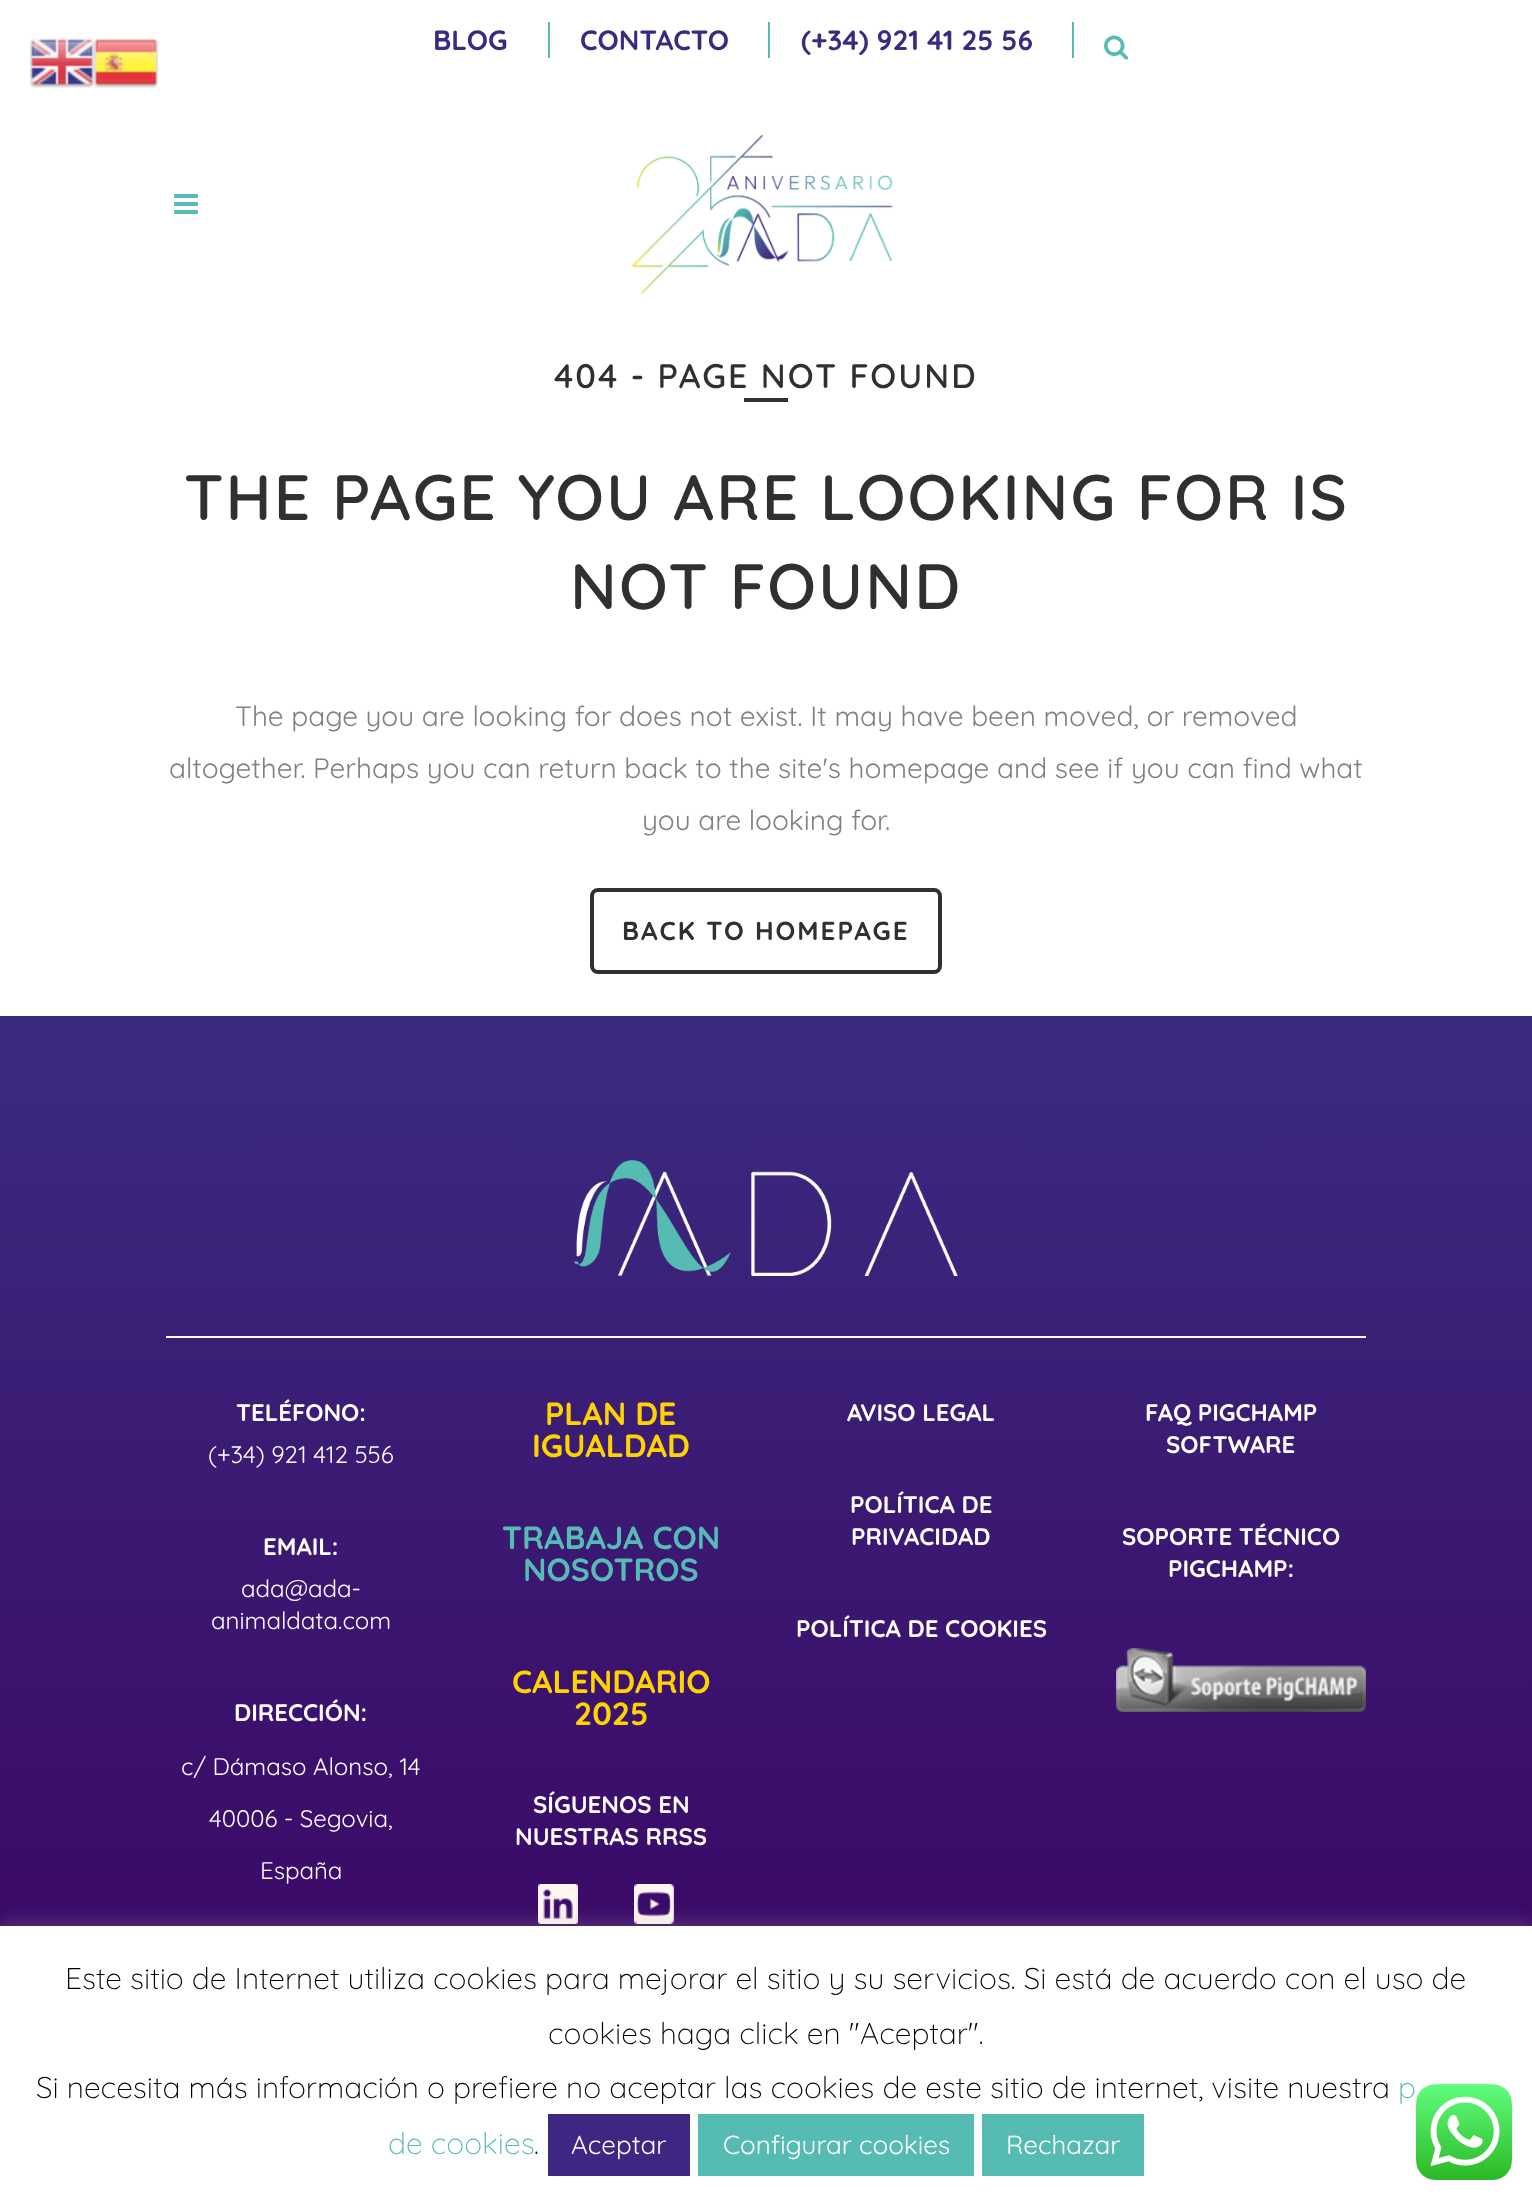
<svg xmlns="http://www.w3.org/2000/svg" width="1532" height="2199">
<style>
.a{font:bold 28px Quicksand;fill:#3b2b80}
.b{font:600 34px Quicksand;letter-spacing:2px;fill:#303030}
.c{font:600 64px Quicksand;letter-spacing:2px;fill:#303030}
.d{font:28px Quicksand;fill:#818181}
.e{font:bold 26px Quicksand;letter-spacing:2px;fill:#303030}
.f{font:bold 24px Quicksand;fill:#fff}
.g{font:24px Quicksand;fill:#fff}
.h{font:bold 32px Quicksand;fill:#ffd300}
.i{font:bold 32px Quicksand;fill:#55bbb3}
.j{font:300 30px Quicksand;fill:#000}
.k{font:300 30px Quicksand;fill:#55bbb3}
.l{font:26px Quicksand;fill:#fff}
</style>
<defs>
<linearGradient id="g1" gradientUnits="userSpaceOnUse" x1="766" y1="1016" x2="766" y2="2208"><stop offset="0" stop-color="#3b2b80"/><stop offset="1" stop-color="#3b0061"/></linearGradient>
</defs>
<rect width="100%" height="100%" fill="#fff"/>
<image href="1.png" x="30" y="38" width="64" height="50"/>
<image href="2.png" x="94" y="38" width="64" height="50"/>
<path fill="#55bbb3" d="M548 22h2v36H548z"/>
<path fill="#55bbb3" d="M768 22h2v36H768z"/>
<path fill="#55bbb3" d="M1072 22h2v36H1072z"/>
<image href="3.png" x="1104" y="35" width="25" height="25"/>
<image href="4.png" x="174" y="194" width="24" height="20"/>
<image href="5.png" x="631" y="134" width="262" height="161"/>
<path fill="#303030" d="M744 398h44v4H744z"/>
<rect fill="none" stroke="#303030" stroke-width="4" x="592" y="890" width="348" height="82" rx="6"/>
<path fill="url(#g1)" d="M0 1016h1532v910H0z"/>
<path fill="#fff" d="M166 1336h1200v2H166z"/>
<image href="6.png" x="574" y="1160" width="384" height="116"/>
<image href="7.png" x="538" y="1884" width="40" height="40"/>
<image href="8.png" x="634" y="1884" width="40" height="40"/>
<image href="9.png" x="1116" y="1648" width="250" height="64"/>
<path fill="#acabab4d" filter="blur(10px)" d="M0 1924h1532v274H0z"/>
<path fill="#fff" d="M0 1926h1532v273H0z"/>
<path fill="#3e2683" d="M548 2114h142v62H548z"/>
<path fill="#55bbb3" d="M698 2114h276v62H698z"/>
<path fill="#55bbb3" d="M982 2114h162v62H982z"/>
<image href="10.png" x="1416" y="2084" width="96" height="96"/>
<text class="a" x="433" y="50">BLOG</text>
<text class="a" x="580" y="50">CONTACTO</text>
<text class="a" x="801" y="50">(+34) 921 41 25 56</text>
<text class="b" x="554" y="388">404 - PAGE NOT FOUND</text>
<text class="c" x="184" y="520">THE PAGE YOU ARE LOOKING FOR IS</text>
<text class="c" x="570" y="609">NOT FOUND</text>
<text class="d" x="235" y="726">The page you are looking for does not exist. It may have been moved, or removed</text>
<text class="d" x="169" y="778">altogether. Perhaps you can return back to the site's homepage and see if you can find what</text>
<text class="d" x="642" y="830">you are looking for.</text>
<text class="e" x="622" y="940">BACK TO HOMEPAGE</text>
<text class="f" x="236" y="1421">TELÉFONO:</text>
<text class="g" x="208" y="1463">(+34) 921 412 556</text>
<text class="f" x="263" y="1555">EMAIL:</text>
<text class="g" x="241" y="1597">ada@ada-</text>
<text class="g" x="211" y="1629">animaldata.com</text>
<text class="f" x="234" y="1721">DIRECCIÓN:</text>
<text class="g" x="181" y="1775">c/ Dámaso Alonso, 14</text>
<text class="g" x="209" y="1827">40006 - Segovia,</text>
<text class="g" x="260" y="1879">España</text>
<text class="h" x="545" y="1425">PLAN DE</text>
<text class="h" x="532" y="1457">IGUALDAD</text>
<text class="i" x="502" y="1549">TRABAJA CON</text>
<text class="i" x="523" y="1581">NOSOTROS</text>
<text class="h" x="512" y="1693">CALENDARIO</text>
<text class="h" x="574" y="1725">2025</text>
<text class="f" x="533" y="1813">SÍGUENOS EN</text>
<text class="f" x="515" y="1845">NUESTRAS RRSS</text>
<text class="f" x="847" y="1421">AVISO LEGAL</text>
<text class="f" x="850" y="1513">POLÍTICA DE</text>
<text class="f" x="851" y="1545">PRIVACIDAD</text>
<text class="f" x="796" y="1637">POLÍTICA DE COOKIES</text>
<text class="f" x="1145" y="1421">FAQ PIGCHAMP</text>
<text class="f" x="1166" y="1453">SOFTWARE</text>
<text class="f" x="1122" y="1545">SOPORTE TÉCNICO</text>
<text class="f" x="1168" y="1577">PIGCHAMP:</text>
<text class="j" x="65" y="1989">Este sitio de Internet utiliza cookies para mejorar el sitio y su servicios. Si está de acuerdo con el uso de</text>
<text class="j" x="548" y="2044">cookies haga click en "Aceptar".</text>
<text class="j" x="36" y="2098">Si necesita más información o prefiere no aceptar las cookies de este sitio de internet, visite nuestra</text>
<text class="k" x="1398" y="2098">p</text>
<text class="k" x="388" y="2154">de cookies</text>
<text class="j" x="534" y="2154">.</text>
<text class="l" x="571" y="2154">Aceptar</text>
<text class="l" x="723" y="2154">Configurar cookies</text>
<text class="l" x="1006" y="2154">Rechazar</text>
</svg>
